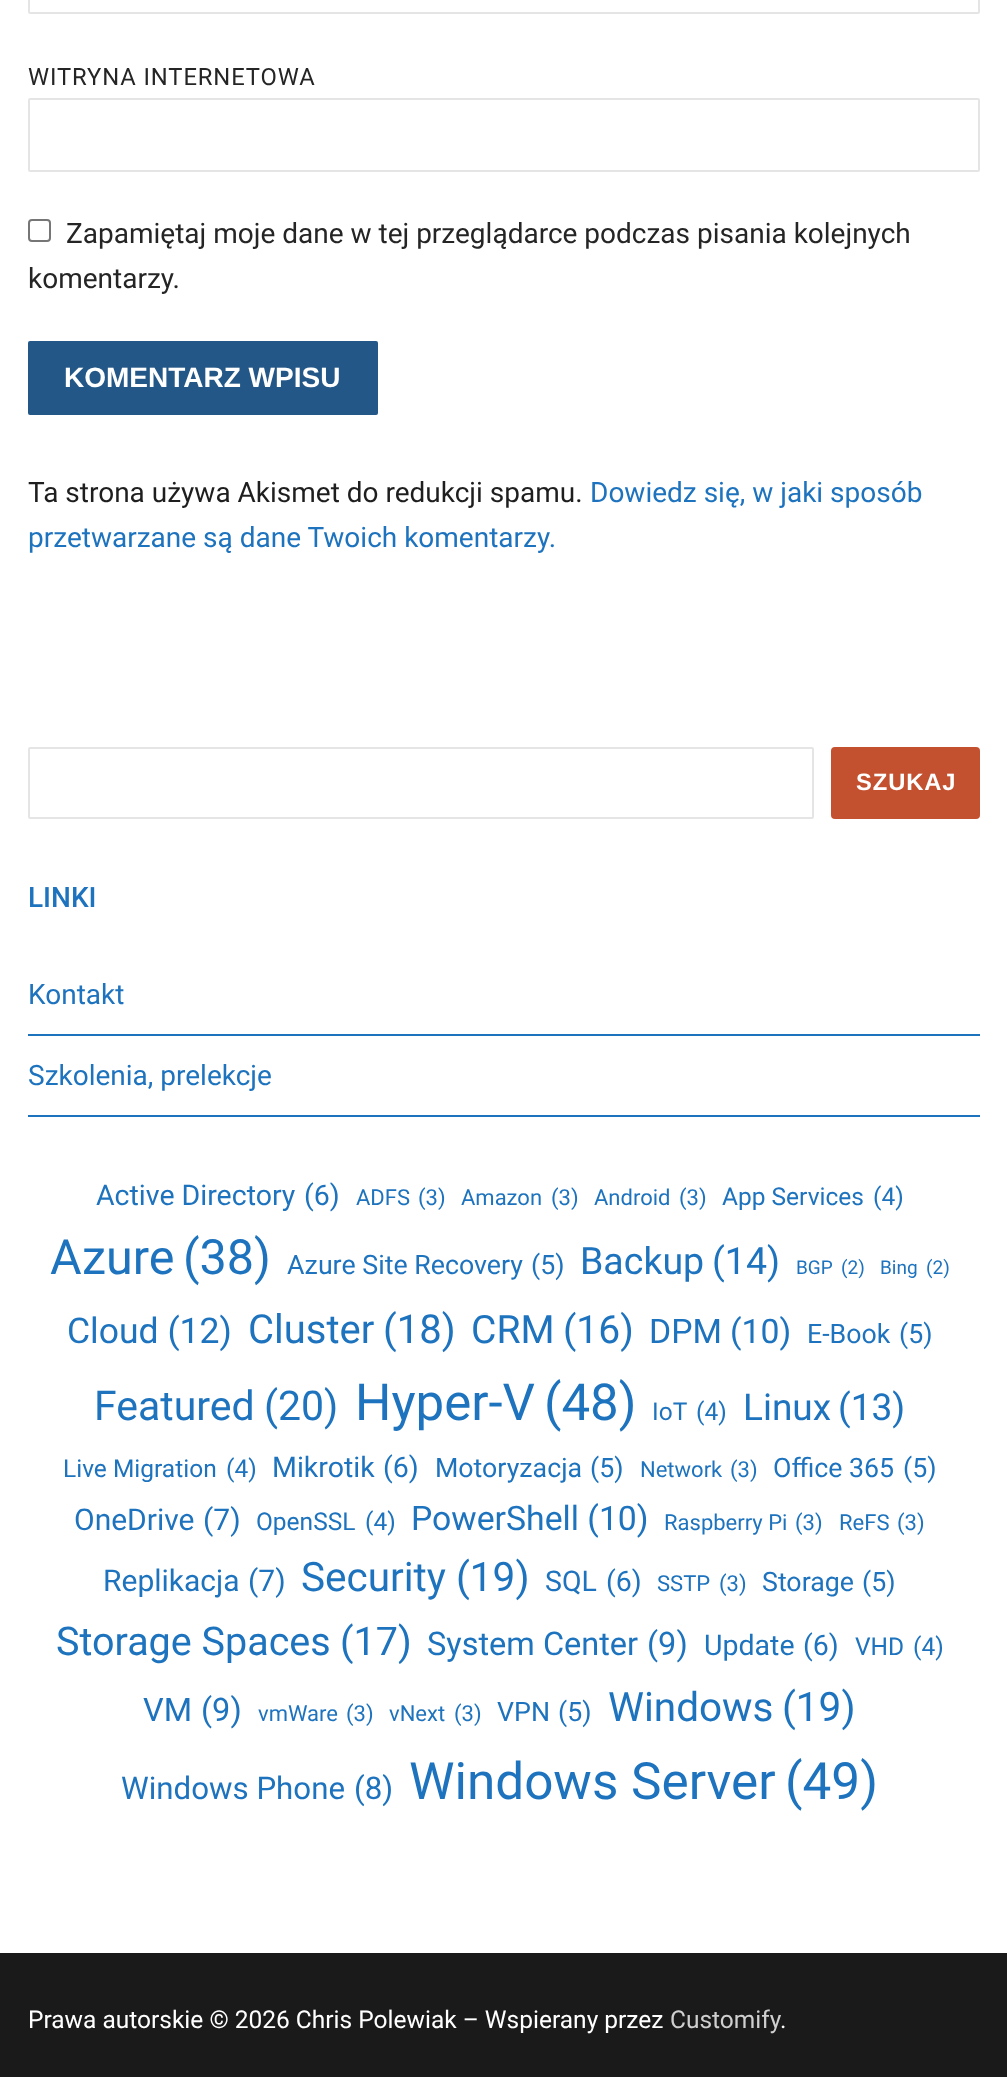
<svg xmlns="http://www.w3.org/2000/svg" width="1007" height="2077">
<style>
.a{font:23.75px Roboto;letter-spacing:0.9px;fill:#252525}
.b{font:28px Roboto;fill:#252525}
.c{font:bold 28px Liberation Sans;fill:#fff}
.d{font:28px Roboto;fill:#1e1e1e}
.e{font:28px Roboto;fill:#1e73be}
.f{font:bold 23.75px Liberation Sans;letter-spacing:0.9px;fill:#fff}
.g{font:500 28px Roboto;fill:#1e73be}
.h{font:28.5px Roboto;fill:#1e73be}
.i{font:22px Roboto;fill:#1e73be}
.j{font:24.5px Roboto;fill:#1e73be}
.k{font:48.5px Roboto;fill:#1e73be}
.l{font:26.75px Roboto;fill:#1e73be}
.m{font:37.5px Roboto;fill:#1e73be}
.n{font:19px Roboto;fill:#1e73be}
.o{font:35.5px Roboto;fill:#1e73be}
.p{font:40px Roboto;fill:#1e73be}
.q{font:39px Roboto;fill:#1e73be}
.r{font:33.75px Roboto;fill:#1e73be}
.s{font:41px Roboto;fill:#1e73be}
.t{font:51px Roboto;fill:#1e73be}
.u{font:37px Roboto;fill:#1e73be}
.v{font:30px Roboto;fill:#1e73be}
.w{font:40.5px Roboto;fill:#1e73be}
.x{font:39.5px Roboto;fill:#1e73be}
.y{font:32.5px Roboto;fill:#1e73be}
.z{font:31.25px Roboto;fill:#1e73be}
.a1{font:51.25px Roboto;fill:#1e73be}
.b1{font:24.5px Roboto;fill:#fff}
.c1{font:24.5px Roboto;fill:#cfcfcf}
</style>
<rect width="100%" height="100%" fill="#fff"/>
<rect fill="none" stroke="#e5e5e5" stroke-width="2" x="29" y="-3" width="950" height="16" rx="1"/>
<rect fill="none" stroke="#e5e5e5" stroke-width="2" x="29" y="99" width="950" height="72" rx="1"/>
<rect fill="none" stroke="#767676" stroke-width="2" x="29" y="220" width="21" height="21" rx="3"/>
<rect fill="#235787" x="28" y="341" width="350" height="74" rx="2"/>
<rect fill="none" stroke="#e5e5e5" stroke-width="2" x="29" y="748" width="784" height="70" rx="1"/>
<rect fill="#c3512f" x="831" y="747" width="149" height="72" rx="4"/>
<path fill="#1e73be" d="M28 1034h952v2H28z"/>
<path fill="#1e73be" d="M28 1115h952v2H28z"/>
<path fill="#1a1a1a" d="M0 1953h1007v124H0z"/>
<text class="a" x="28" y="85">WITRYNA INTERNETOWA</text>
<text class="b" x="66" y="243">Zapamiętaj moje dane w tej przeglądarce podczas pisania kolejnych</text>
<text class="b" x="28" y="288">komentarzy.</text>
<text class="c" x="64" y="387">KOMENTARZ WPISU</text>
<text class="d" x="28" y="502">Ta strona używa Akismet do redukcji spamu.</text>
<text class="e" x="590" y="502">Dowiedz się, w jaki sposób</text>
<text class="e" x="28" y="547">przetwarzane są dane Twoich komentarzy.</text>
<text class="f" x="856" y="790">SZUKAJ</text>
<text class="g" x="28" y="907">LINKI</text>
<text class="e" x="28" y="1004">Kontakt</text>
<text class="e" x="28" y="1085">Szkolenia, prelekcje</text>
<text class="h" x="96" y="1205">Active Directory</text>
<text class="h" x="304" y="1205">(6)</text>
<text class="i" x="356" y="1205">ADFS</text>
<text class="i" x="418" y="1205">(3)</text>
<text class="i" x="461" y="1205">Amazon</text>
<text class="i" x="551" y="1205">(3)</text>
<text class="i" x="594" y="1205">Android</text>
<text class="i" x="679" y="1205">(3)</text>
<text class="j" x="722" y="1205">App Services</text>
<text class="j" x="873" y="1205">(4)</text>
<text class="k" x="50" y="1274">Azure</text>
<text class="k" x="183" y="1274">(38)</text>
<text class="l" x="287" y="1274">Azure Site Recovery</text>
<text class="l" x="531" y="1274">(5)</text>
<text class="m" x="580" y="1274">Backup</text>
<text class="m" x="712" y="1274">(14)</text>
<text class="n" x="796" y="1274">BGP</text>
<text class="n" x="841" y="1274">(2)</text>
<text class="n" x="880" y="1274">Bing</text>
<text class="n" x="926" y="1274">(2)</text>
<text class="o" x="67" y="1343">Cloud (12)</text>
<text class="p" x="248" y="1343">Cluster</text>
<text class="p" x="383" y="1343">(18)</text>
<text class="q" x="471" y="1343">CRM</text>
<text class="q" x="563" y="1343">(16)</text>
<text class="r" x="649" y="1343">DPM</text>
<text class="r" x="730" y="1343">(10)</text>
<text class="l" x="807" y="1343">E-Book</text>
<text class="l" x="899" y="1343">(5)</text>
<text class="s" x="94" y="1420">Featured</text>
<text class="s" x="264" y="1420">(20)</text>
<text class="t" x="355" y="1420">Hyper-V</text>
<text class="t" x="544" y="1420">(48)</text>
<text class="j" x="652" y="1420">IoT</text>
<text class="j" x="696" y="1420">(4)</text>
<text class="u" x="743" y="1420">Linux</text>
<text class="u" x="838" y="1420">(13)</text>
<text class="j" x="63" y="1477">Live Migration</text>
<text class="j" x="226" y="1477">(4)</text>
<text class="h" x="272" y="1477">Mikrotik</text>
<text class="h" x="383" y="1477">(6)</text>
<text class="l" x="435" y="1477">Motoryzacja</text>
<text class="l" x="590" y="1477">(5)</text>
<text class="i" x="640" y="1477">Network</text>
<text class="i" x="730" y="1477">(3)</text>
<text class="l" x="773" y="1477">Office 365</text>
<text class="l" x="903" y="1477">(5)</text>
<text class="v" x="74" y="1530">OneDrive</text>
<text class="v" x="203" y="1530">(7)</text>
<text class="j" x="256" y="1530">OpenSSL</text>
<text class="j" x="365" y="1530">(4)</text>
<text class="r" x="411" y="1530">PowerShell (10)</text>
<text class="i" x="664" y="1530">Raspberry Pi</text>
<text class="i" x="795" y="1530">(3)</text>
<text class="i" x="839" y="1530">ReFS</text>
<text class="i" x="897" y="1530">(3)</text>
<text class="v" x="103" y="1591">Replikacja</text>
<text class="v" x="248" y="1591">(7)</text>
<text class="w" x="301" y="1591">Security</text>
<text class="w" x="456" y="1591">(19)</text>
<text class="h" x="545" y="1591">SQL</text>
<text class="h" x="606" y="1591">(6)</text>
<text class="i" x="657" y="1591">SSTP</text>
<text class="i" x="719" y="1591">(3)</text>
<text class="l" x="762" y="1591">Storage</text>
<text class="l" x="862" y="1591">(5)</text>
<text class="x" x="56" y="1655">Storage Spaces</text>
<text class="x" x="340" y="1655">(17)</text>
<text class="y" x="427" y="1655">System Center</text>
<text class="y" x="647" y="1655">(9)</text>
<text class="h" x="704" y="1655">Update</text>
<text class="h" x="803" y="1655">(6)</text>
<text class="j" x="855" y="1655">VHD</text>
<text class="j" x="913" y="1655">(4)</text>
<text class="y" x="143" y="1721">VM</text>
<text class="y" x="201" y="1721">(9)</text>
<text class="i" x="258" y="1721">vmWare</text>
<text class="i" x="346" y="1721">(3)</text>
<text class="i" x="389" y="1721">vNext</text>
<text class="i" x="454" y="1721">(3)</text>
<text class="l" x="497" y="1721">VPN</text>
<text class="l" x="558" y="1721">(5)</text>
<text class="w" x="608" y="1721">Windows</text>
<text class="w" x="782" y="1721">(19)</text>
<text class="z" x="121" y="1799">Windows Phone</text>
<text class="z" x="354" y="1799">(8)</text>
<text class="a1" x="409" y="1799">Windows Server</text>
<text class="a1" x="785" y="1799">(49)</text>
<text class="b1" x="28" y="2028">Prawa autorskie © 2026 Chris Polewiak – Wspierany przez</text>
<text class="c1" x="670" y="2028">Customify</text>
<text class="b1" x="780" y="2028">.</text>
</svg>
